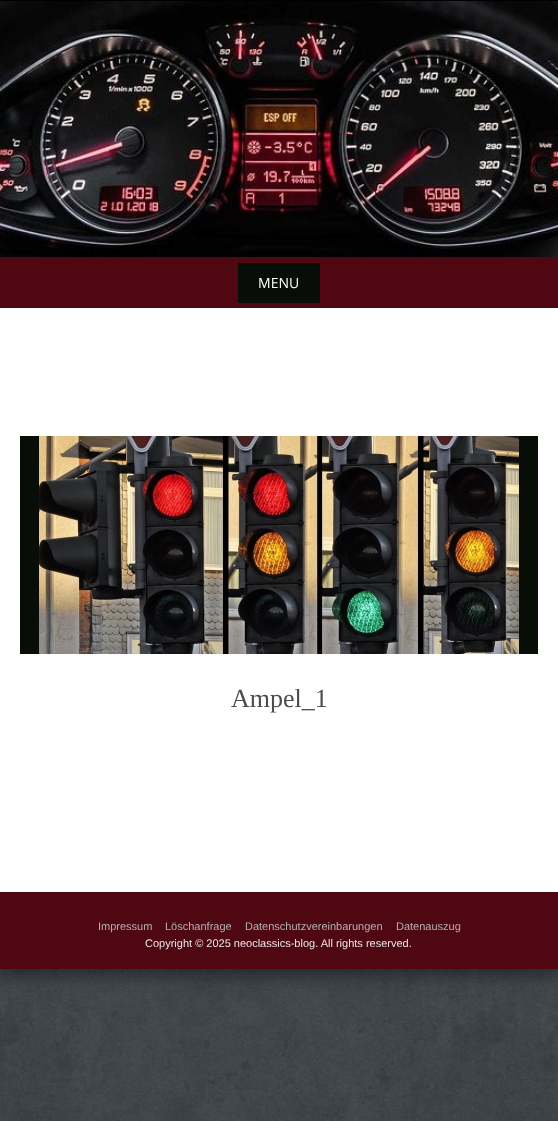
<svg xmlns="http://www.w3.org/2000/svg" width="558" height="1121">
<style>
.a{font:14px Open Sans;fill:#fff}
.b{font:26px Liberation Serif;fill:#4c4c4c}
.c{font:11px Liberation Sans;fill:#b2b2b2}
.d{font:11px Liberation Sans;fill:#e8e8e8}
</style>
<rect width="100%" height="100%" fill="#fff"/>
<image href="1.png" x="0" y="969" width="558" height="152"/>
<path fill="#00000080" filter="blur(10px)" d="M-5 -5h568v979H-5z"/>
<path fill="#000" d="M0 0h558v1H0z"/>
<image href="2.png" x="0" y="1" width="558" height="256"/>
<path fill="#4f0712" d="M0 257h558v51H0z"/>
<path fill="#080d07" d="M238 263h82v40H238z"/>
<path fill="#fff" d="M0 308h558v584H0z"/>
<path fill="#080d07" d="M20 436h518v218H20z"/>
<image href="3.png" x="39" y="436" width="480" height="218"/>
<path fill="#4f0712" d="M0 892h558v77H0z"/>
<text class="a" x="258" y="288">MENU</text>
<text class="b" x="231" y="707">Ampel_1</text>
<text class="c" x="98" y="930">Impressum</text>
<text class="c" x="165" y="930">Löschanfrage</text>
<text class="c" x="245" y="930">Datenschutzvereinbarungen</text>
<text class="c" x="396" y="930">Datenauszug</text>
<text class="d" x="145" y="947">Copyright © 2025 neoclassics-blog. All rights reserved.</text>
</svg>
